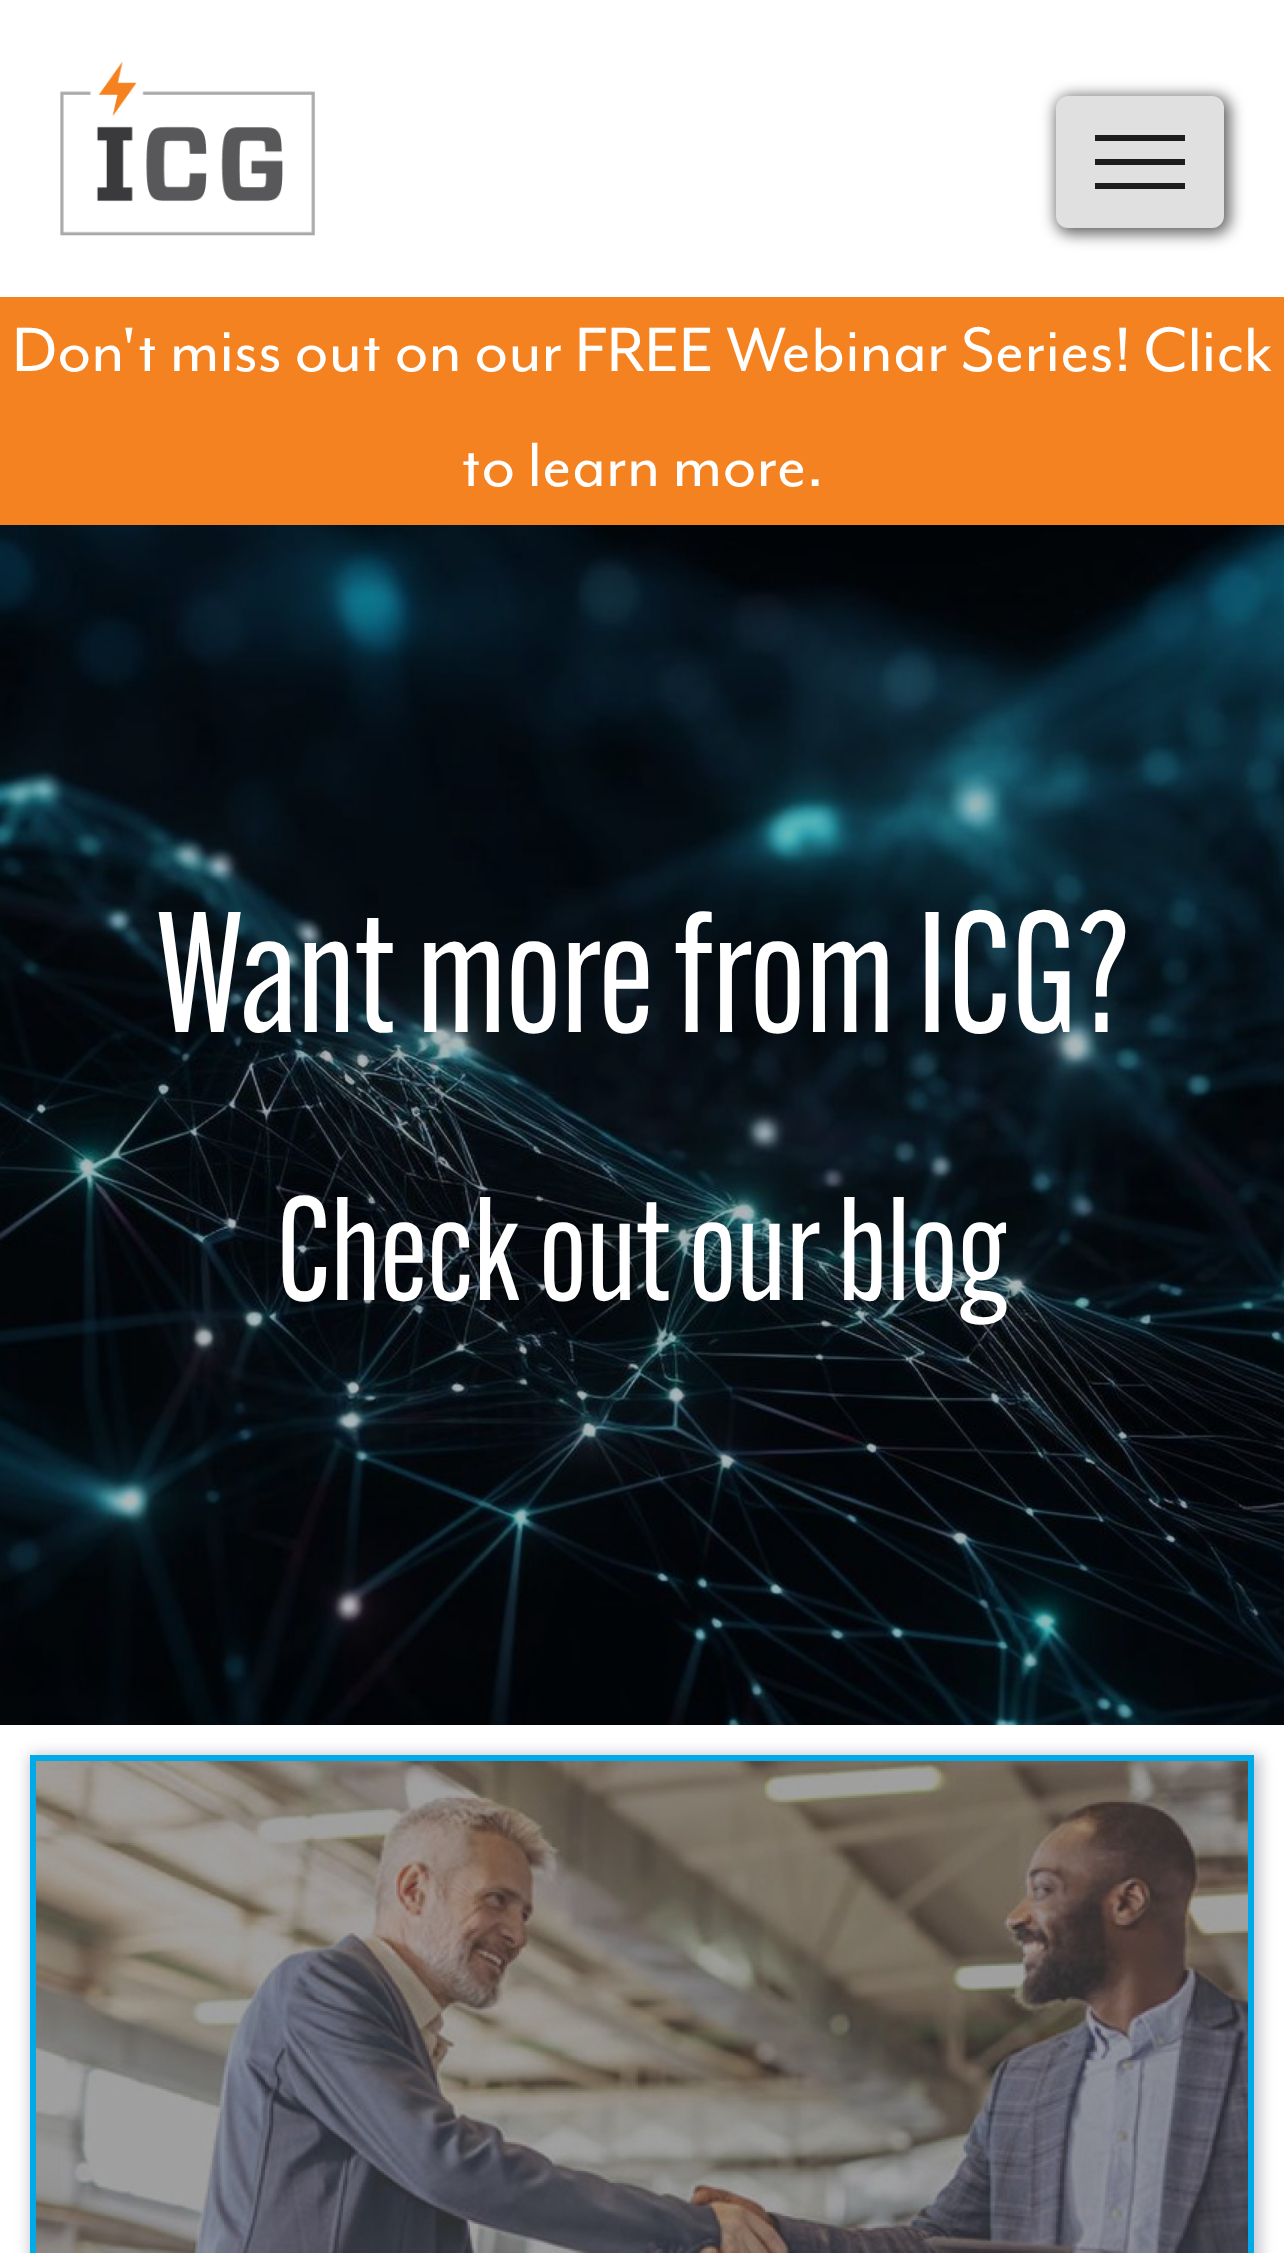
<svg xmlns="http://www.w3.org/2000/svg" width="1284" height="2253">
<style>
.a{font:72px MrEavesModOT;fill:#fff}
.b{font:168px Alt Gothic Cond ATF;fill:#fff}
.c{font:144px Alt Gothic Cond ATF;fill:#fff}
</style>
<rect width="100%" height="100%" fill="#fff"/>
<image href="1.png" x="60" y="61" width="255" height="175"/>
<rect fill="#626262" filter="blur(7.5px)" x="1056" y="96" width="174" height="138" rx="15"/>
<rect fill="#e0e0e0" x="1056" y="96" width="168" height="132" rx="12"/>
<path fill="#1c1c1c" d="M1095 135h90v6H1095z"/>
<path fill="#1c1c1c" d="M1095 159h90v6H1095z"/>
<path fill="#1c1c1c" d="M1095 183h90v6H1095z"/>
<path fill="#f58220" d="M0 297h1284v228H0z"/>
<image href="2.png" x="0" y="525" width="1284" height="1200"/>
<path fill="#c1c2ce" filter="blur(7.5px)" d="M30 1755h1230v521H30z"/>
<path fill="none" stroke="#00aae9" stroke-width="6" d="M33 1758h1218v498H33z"/>
<image href="3.png" x="36" y="1761" width="1212" height="492"/>
<text class="a" x="12" y="371">Don't miss out on our FREE Webinar Series! Click</text>
<text class="a" x="461" y="486">to learn more.</text>
<text class="b" x="156" y="1032">Want more from ICG?</text>
<text class="c" x="276" y="1300">Check out our blog</text>
</svg>
